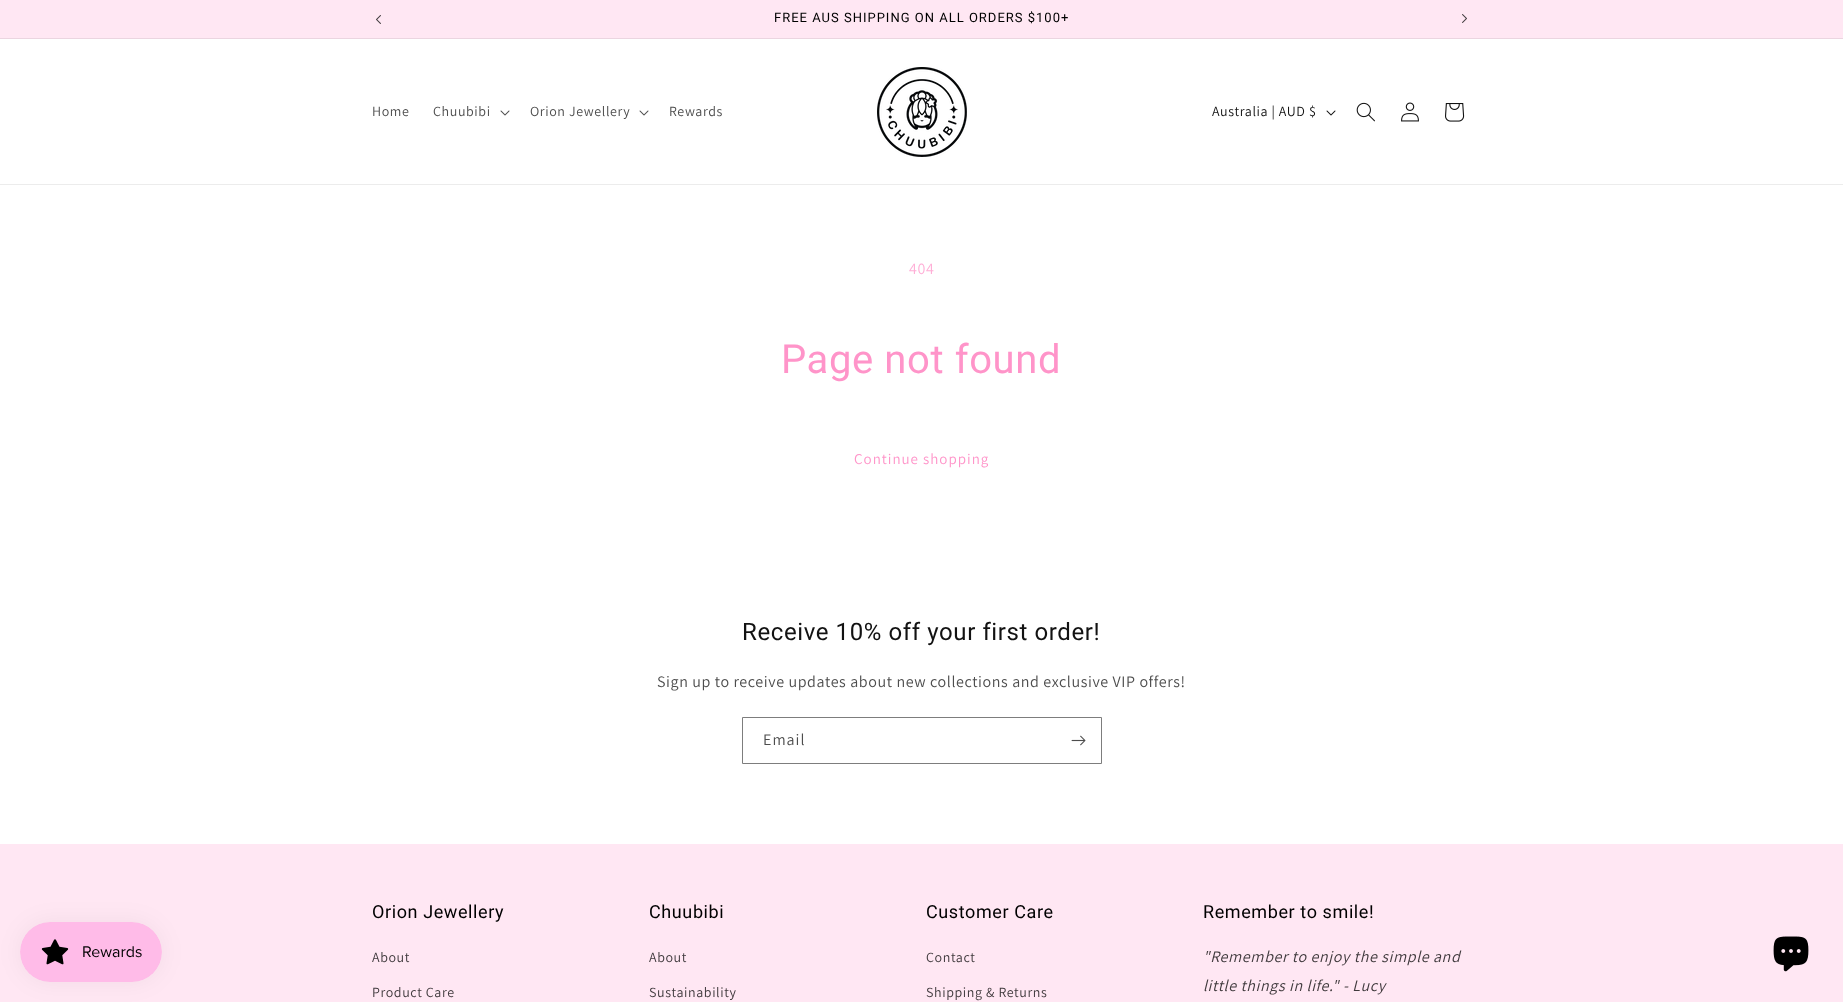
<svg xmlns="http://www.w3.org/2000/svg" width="1843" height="1002">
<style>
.a{font:13px Roboto;letter-spacing:1px;fill:#000}
.b{font:14px Assistant;letter-spacing:0.6px;fill:#4d4d4d}
.c{font:14px Assistant;letter-spacing:0.6px;fill:#121212}
.d{font:16px Assistant;letter-spacing:0.6px;fill:#ffafd7}
.e{font:40px Roboto;letter-spacing:0.6px;fill:#ff94c9}
.f{font:15px Assistant;letter-spacing:1px;fill:#ff94c9}
.g{font:24px Roboto;letter-spacing:0.6px;fill:#121212}
.h{font:16px Assistant;letter-spacing:0.6px;fill:#4d4d4d}
.i{font:16px Assistant;letter-spacing:1px;fill:#4d4d4d}
.j{font:18px Roboto;letter-spacing:0.6px;fill:#000}
.k{font:14px Assistant;letter-spacing:0.6px;fill:#403a3d}
.l{font:italic 16px Assistant;letter-spacing:0.6px;fill:#403a3d}
</style>
<rect width="100%" height="100%" fill="#fff"/>
<path fill="#ffe7f3" d="M0 0h1843v38H0z"/>
<path fill="#ebd5e0" d="M0 38h1843v1H0z"/>
<image href="1.png" x="376" y="15" width="5" height="9"/>
<image href="2.png" x="1462" y="14" width="5" height="9"/>
<path fill="#ececec" d="M0 184h1843v1H0z"/>
<image href="3.png" x="500" y="110" width="10" height="6"/>
<image href="3.png" x="639" y="110" width="10" height="6"/>
<image href="4.png" x="877" y="67" width="90" height="90"/>
<image href="5.png" x="1326" y="110" width="10" height="6"/>
<image href="6.png" x="1356" y="102" width="19" height="20"/>
<image href="7.png" x="1401" y="102" width="18" height="20"/>
<image href="8.png" x="1445" y="103" width="20" height="19"/>
<path fill="none" stroke="#7d7d7d" d="M742.5 717.5h359v46H742.5z"/>
<image href="9.png" x="1071" y="735" width="15" height="11"/>
<path fill="#ffe7f3" d="M0 844h1843v158H0z"/>
<rect fill="#0000000d" filter="blur(12.5px)" x="20" y="922" width="142" height="60" rx="30"/>
<image href="10.png" x="20" y="922" width="142" height="60"/>
<image href="11.png" x="1773" y="936" width="36" height="36"/>
<text class="a" x="774" y="22">FREE AUS SHIPPING ON ALL ORDERS $100+</text>
<text class="b" x="372" y="116">Home</text>
<text class="b" x="433" y="116">Chuubibi</text>
<text class="b" x="530" y="116">Orion Jewellery</text>
<text class="b" x="669" y="116">Rewards</text>
<text class="c" x="1212" y="116">Australia | AUD $</text>
<text class="d" x="909" y="274">404</text>
<text class="e" x="781" y="373">Page not found</text>
<text class="f" x="854" y="464">Continue shopping</text>
<text class="g" x="742" y="640">Receive 10% off your first order!</text>
<text class="h" x="657" y="687">Sign up to receive updates about new collections and exclusive VIP offers!</text>
<text class="i" x="763" y="745">Email</text>
<text class="j" x="372" y="918">Orion Jewellery</text>
<text class="k" x="372" y="962">About</text>
<text class="k" x="372" y="997">Product Care</text>
<text class="j" x="649" y="918">Chuubibi</text>
<text class="k" x="649" y="962">About</text>
<text class="k" x="649" y="997">Sustainability</text>
<text class="j" x="926" y="918">Customer Care</text>
<text class="k" x="926" y="962">Contact</text>
<text class="k" x="926" y="997">Shipping &amp; Returns</text>
<text class="j" x="1203" y="918">Remember to smile!</text>
<text class="l" x="1203" y="962">"Remember to enjoy the simple and</text>
<text class="l" x="1203" y="991">little things in life." - Lucy</text>
</svg>
